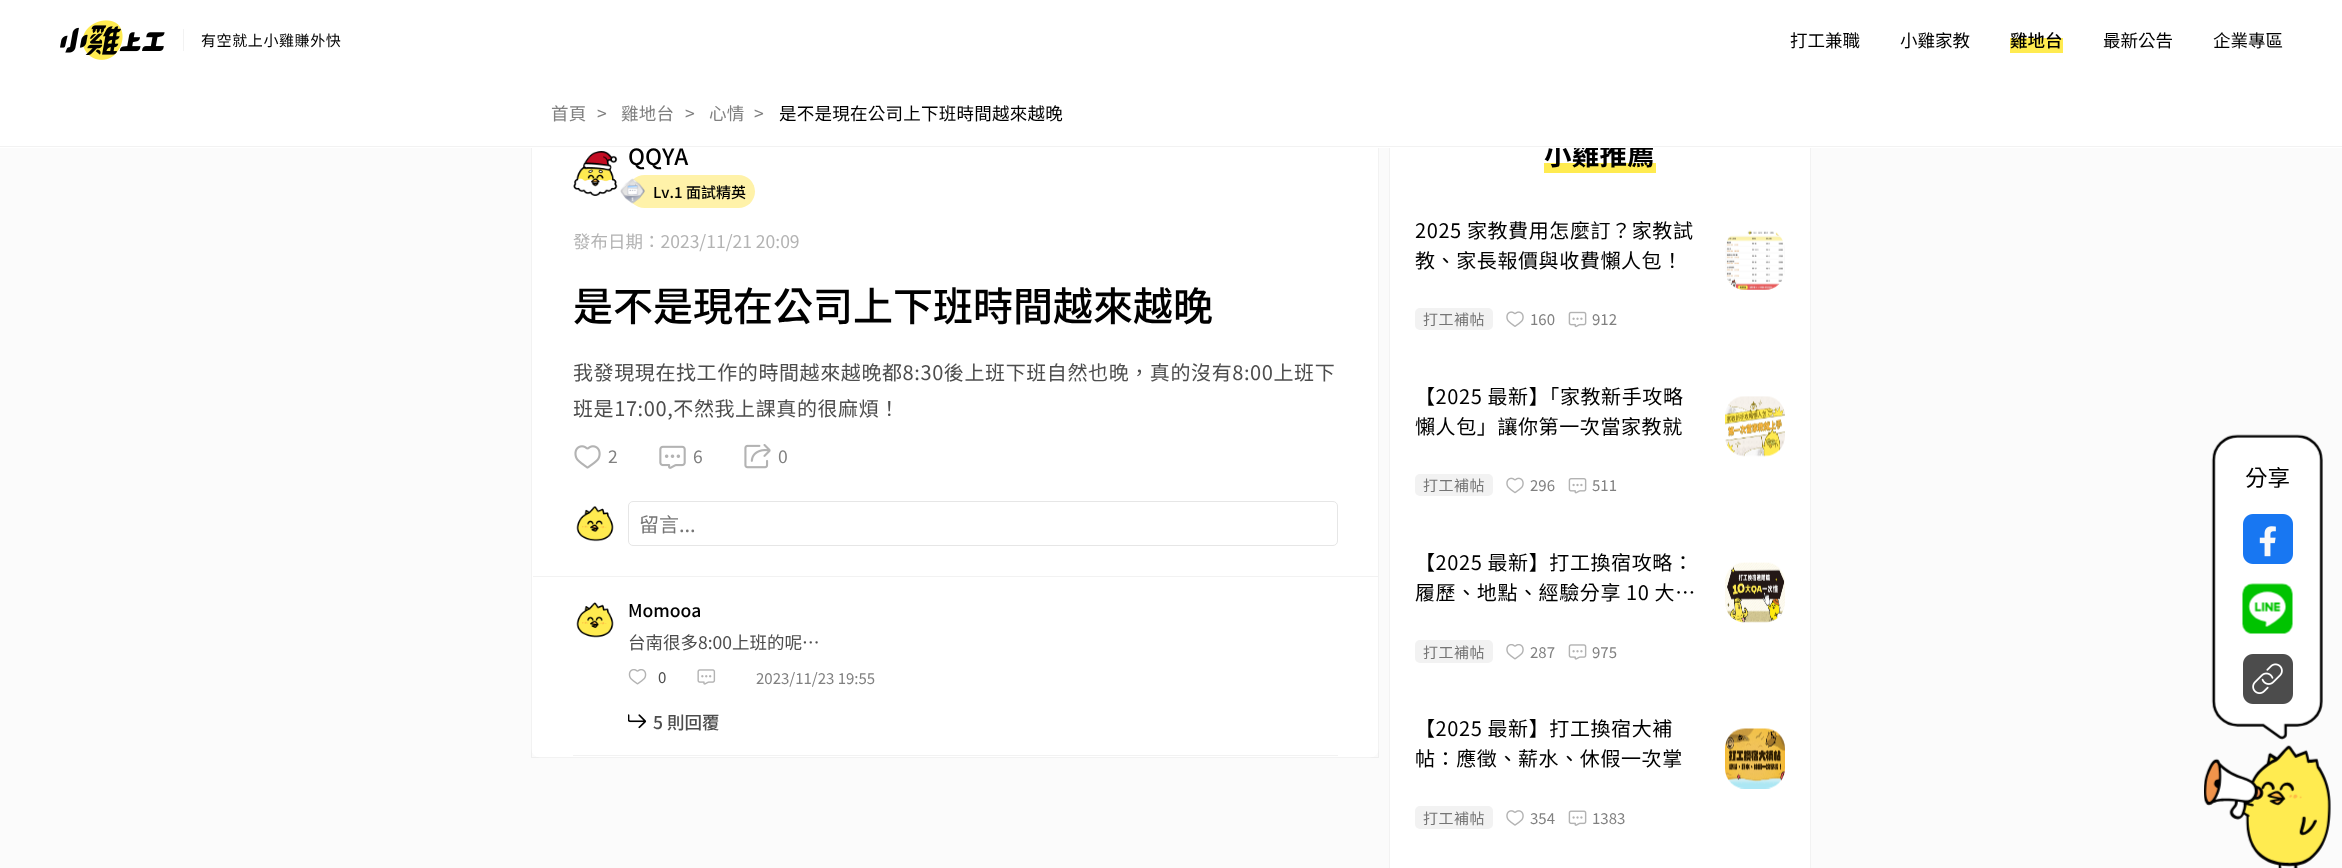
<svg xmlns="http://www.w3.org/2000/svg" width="2342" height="868">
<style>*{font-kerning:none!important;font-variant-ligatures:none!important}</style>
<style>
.a{font:500 22.5px Noto Sans TC;fill:#000}
.b{font:500 15px Noto Sans TC;fill:#000}
.c{font:17.5px Noto Sans TC;fill:#b3b3b3}
.d{font:500 40px Noto Sans TC;fill:#000}
.e{font:20px Noto Sans TC;letter-spacing:0.6px;fill:#4d4d4d}
.f{font:17.5px Noto Sans TC;letter-spacing:0.25px;fill:#808080}
.g{font:20px Noto Sans TC;fill:#757575}
.h{font:500 17.5px Noto Sans TC;fill:#000}
.i{font:17.5px Noto Sans TC;fill:#4d4d4d}
.j{font:15px Noto Sans TC;fill:#4d4d4d}
.k{font:15px Noto Sans TC;fill:#808080}
.l{font:500 17.5px Noto Sans TC;fill:#4d4d4d}
.m{font:bold 27.5px Noto Sans TC;letter-spacing:0.25px;fill:#000}
.n{font:17.5px Noto Sans TC;fill:#000}
.o{font:15px Noto Sans TC;letter-spacing:0.6px;fill:#000}
.p{font:17.5px Noto Sans TC;letter-spacing:0.25px;fill:#000}
.q{font:20px Noto Sans TC;letter-spacing:0.6px;fill:#000}
.r{font:15px Noto Sans TC;letter-spacing:0.5px;fill:#757575}
.s{font:22.5px Noto Sans TC;fill:#000}
</style>
<rect width="100%" height="100%" fill="#fbfbfb"/>
<rect fill="#fff" x="531" y="98" width="848" height="660" rx="10"/>
<path fill="none" stroke="#0000000d" d="M531.5 98.5h847v659H531.5z"/>
<path fill="#f2f2f2" d="M533 576h845v1H533z"/>
<image href="2.png" x="573" y="151" width="45" height="45"/>
<rect fill="#fff2a9" x="628" y="175" width="127" height="33" rx="16.5"/>
<image href="3.png" x="620" y="178" width="25" height="26"/>
<image href="4.png" x="574" y="445" width="27" height="24"/>
<image href="5.png" x="659" y="445" width="27" height="24"/>
<image href="6.png" x="744" y="444" width="27" height="25"/>
<image href="7.png" x="576" y="506" width="38" height="36"/>
<rect fill="none" stroke="#e6e6e6" x="628.5" y="501.5" width="709" height="44" rx="4.5"/>
<path fill="#f2f2f2" d="M573 755h765v1H573z"/>
<image href="8.png" x="576" y="602" width="38" height="36"/>
<image href="9.png" x="628" y="669" width="19" height="16"/>
<image href="10.png" x="697" y="669" width="19" height="16"/>
<image href="11.png" x="628" y="714" width="19" height="15"/>
<path fill="#fff" d="M1390 148h420v720H1390z"/>
<path fill="none" stroke="#f2f2f2" d="M1389.5 96.5h421v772H1389.5z"/>
<path fill="#ffeb50" d="M1544 163h112v10H1544z"/>
<image href="12.png" x="1725" y="230" width="60" height="60"/>
<rect fill="#f2f2f2" x="1415" y="308" width="78" height="22" rx="5"/>
<image href="13.png" x="1506" y="311" width="18" height="16"/>
<image href="14.png" x="1568" y="311" width="19" height="17"/>
<image href="15.png" x="1725" y="396" width="60" height="61"/>
<rect fill="#f2f2f2" x="1415" y="474" width="78" height="22" rx="5"/>
<image href="16.png" x="1506" y="477" width="18" height="17"/>
<image href="17.png" x="1568" y="478" width="19" height="16"/>
<image href="18.png" x="1725" y="562" width="60" height="61"/>
<rect fill="#f2f2f2" x="1415" y="640" width="78" height="23" rx="5"/>
<image href="19.png" x="1506" y="644" width="18" height="16"/>
<image href="20.png" x="1568" y="644" width="19" height="16"/>
<image href="21.png" x="1725" y="728" width="60" height="61"/>
<rect fill="#f2f2f2" x="1415" y="806" width="78" height="23" rx="5"/>
<image href="22.png" x="1506" y="810" width="18" height="16"/>
<image href="23.png" x="1568" y="810" width="19" height="16"/>
<image href="24.png" x="2204" y="434" width="127" height="434"/>
<image href="25.png" x="2243" y="514" width="50" height="50"/>
<image href="26.png" x="2242" y="583" width="51" height="51"/>
<image href="27.png" x="2243" y="654" width="50" height="50"/>
<text class="a" x="628" y="165">QQYA</text>
<text class="b" x="653" y="198">Lv.1 面試精英</text>
<text class="c" x="573" y="248">發布日期：2023/11/21 20:09</text>
<text class="d" x="573" y="321">是不是現在公司上下班時間越來越晚</text>
<text class="e" x="573" y="380">我發現現在找工作的時間越來越晚都8:30後上班下班自然也晚，真的沒有8:00上班下</text>
<text class="e" x="573" y="416">班是17:00,不然我上課真的很麻煩！</text>
<text class="f" x="608" y="463">2</text>
<text class="f" x="693" y="463">6</text>
<text class="f" x="778" y="463">0</text>
<text class="g" x="639" y="532">留言...</text>
<text class="h" x="628" y="617">Momooa</text>
<text class="i" x="628" y="649">台南很多8:00上班的呢⋯</text>
<text class="j" x="658" y="683">0</text>
<text class="k" x="756" y="684">2023/11/23 19:55</text>
<text class="l" x="653" y="729">5 則回覆</text>
<text class="m" x="1544" y="165">小雞推薦</text>
<path fill="#fff" d="M0 0h2342v148H0z"/>
<text class="n" x="2213" y="47">企業專區</text>
<text class="n" x="2103" y="47">最新公告</text>
<path fill="#ffeb50" d="M2010 38h53v15H2010z"/>
<text class="h" x="2010" y="47">雞地台</text>
<text class="n" x="1900" y="47">小雞家教</text>
<text class="n" x="1790" y="47">打工兼職</text>
<text class="o" x="201" y="46">有空就上小雞賺外快</text>
<path fill="#f2f2f2" d="M183 29h1v22H183z"/>
<image href="1.png" x="60" y="20" width="105" height="40"/>
<text class="p" x="779" y="120">是不是現在公司上下班時間越來越晚</text>
<text class="f" x="754" y="120">&gt;</text>
<text class="f" x="709" y="120">心情</text>
<text class="f" x="685" y="120">&gt;</text>
<text class="f" x="621" y="120">雞地台</text>
<text class="f" x="597" y="120">&gt;</text>
<text class="f" x="551" y="120">首頁</text>
<path fill="#f2f2f2" d="M0 146h2342v1H0z"/>
<text class="q" x="1415" y="238">2025 家教費用怎麼訂？家教試</text>
<text class="q" x="1415" y="268">教、家長報價與收費懶人包！</text>
<text class="r" x="1423" y="325">打工補帖</text>
<text class="k" x="1530" y="325">160</text>
<text class="k" x="1592" y="325">912</text>
<text class="q" x="1415" y="404">【2025 最新】「家教新手攻略</text>
<text class="q" x="1415" y="434">懶人包」讓你第一次當家教就</text>
<text class="r" x="1423" y="491">打工補帖</text>
<text class="k" x="1530" y="491">296</text>
<text class="k" x="1592" y="491">511</text>
<text class="q" x="1415" y="570">【2025 最新】打工換宿攻略：</text>
<text class="q" x="1415" y="600">履歷、地點、經驗分享 10 大…</text>
<text class="r" x="1423" y="658">打工補帖</text>
<text class="k" x="1530" y="658">287</text>
<text class="k" x="1592" y="658">975</text>
<text class="q" x="1415" y="736">【2025 最新】打工換宿大補</text>
<text class="q" x="1415" y="766">帖：應徵、薪水、休假一次掌</text>
<text class="r" x="1423" y="824">打工補帖</text>
<text class="k" x="1530" y="824">354</text>
<text class="k" x="1592" y="824">1383</text>
<text class="s" x="2245" y="486">分享</text>
</svg>
